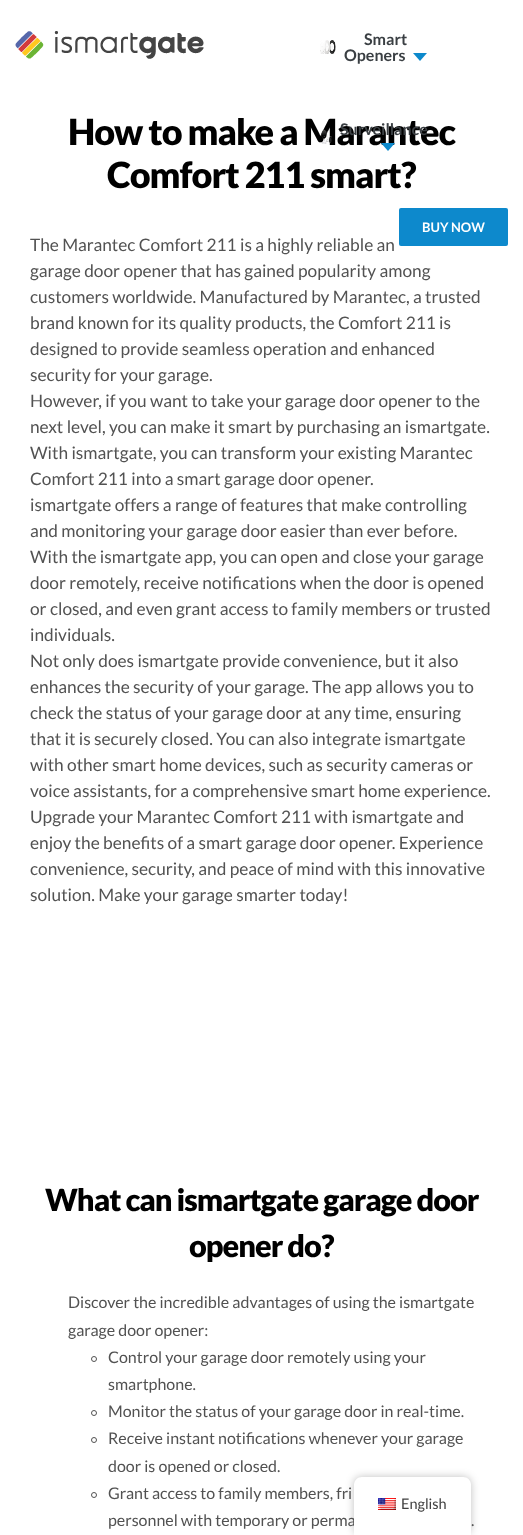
<svg xmlns="http://www.w3.org/2000/svg" width="523" height="1535">
<style>
.a{font:bold 16px Lato;fill:#3a3f43}
.b{font:bold 13px Lato;fill:#fff}
.c{font:900 36px Lato;letter-spacing:-1px;fill:#000}
.d{font:17.3px Lato;fill:#525252}
.e{font:900 30.7px Lato;letter-spacing:-1px;fill:#000}
.f{font:16px Lato;fill:#525252}
.g{font:14.5px Lato;fill:#404040}
</style>
<rect width="100%" height="100%" fill="#fff"/>
<image href="1.png" x="15" y="31" width="189" height="28"/>
<image href="2.png" x="320" y="40" width="16" height="14"/>
<path fill="#0d89cc" d="M413 53h14l-7 8z"/>
<rect fill="#0d89cc" x="399" y="208" width="109" height="38" rx="2"/>
<circle fill="none" stroke="#525252" cx="94" cy="1359" r="2.5"/>
<circle fill="none" stroke="#525252" cx="94" cy="1413" r="2.5"/>
<circle fill="none" stroke="#525252" cx="94" cy="1440" r="2.5"/>
<circle fill="none" stroke="#525252" cx="94" cy="1495" r="2.5"/>
<rect fill="#00000040" filter="blur(4px)" x="354" y="1477" width="117" height="58" rx="8"/>
<text class="a" x="364" y="45">Smart</text>
<text class="a" x="344" y="61">Openers</text>
<text class="b" x="422" y="232">BUY NOW</text>
<text class="c" x="68" y="145">How to make a Marantec</text>
<path fill="#0d89cc" d="M381 143h14l-7 8z"/>
<text class="a" x="340" y="135">Surveillance</text>
<image href="3.png" x="321" y="129" width="11" height="15"/>
<text class="c" x="107" y="188">Comfort 211 smart?</text>
<text class="d" x="30" y="251">The Marantec Comfort 211 is a highly reliable an</text>
<text class="d" x="30" y="277">garage door opener that has gained popularity among</text>
<text class="d" x="30" y="303">customers worldwide. Manufactured by Marantec, a trusted</text>
<text class="d" x="30" y="329">brand known for its quality products, the Comfort 211 is</text>
<text class="d" x="30" y="355">designed to provide seamless operation and enhanced</text>
<text class="d" x="30" y="381">security for your garage.</text>
<text class="d" x="30" y="407">However, if you want to take your garage door opener to the</text>
<text class="d" x="30" y="433">next level, you can make it smart by purchasing an ismartgate.</text>
<text class="d" x="30" y="459">With ismartgate, you can transform your existing Marantec</text>
<text class="d" x="30" y="485">Comfort 211 into a smart garage door opener.</text>
<text class="d" x="30" y="511">ismartgate offers a range of features that make controlling</text>
<text class="d" x="30" y="537">and monitoring your garage door easier than ever before.</text>
<text class="d" x="30" y="563">With the ismartgate app, you can open and close your garage</text>
<text class="d" x="30" y="589">door remotely, receive notifications when the door is opened</text>
<text class="d" x="30" y="615">or closed, and even grant access to family members or trusted</text>
<text class="d" x="30" y="641">individuals.</text>
<text class="d" x="30" y="667">Not only does ismartgate provide convenience, but it also</text>
<text class="d" x="30" y="693">enhances the security of your garage. The app allows you to</text>
<text class="d" x="30" y="719">check the status of your garage door at any time, ensuring</text>
<text class="d" x="30" y="745">that it is securely closed. You can also integrate ismartgate</text>
<text class="d" x="30" y="771">with other smart home devices, such as security cameras or</text>
<text class="d" x="30" y="797">voice assistants, for a comprehensive smart home experience.</text>
<text class="d" x="30" y="823">Upgrade your Marantec Comfort 211 with ismartgate and</text>
<text class="d" x="30" y="849">enjoy the benefits of a smart garage door opener. Experience</text>
<text class="d" x="30" y="875">convenience, security, and peace of mind with this innovative</text>
<text class="d" x="30" y="901">solution. Make your garage smarter today!</text>
<text class="e" x="45" y="1211">What can ismartgate garage door</text>
<text class="e" x="189" y="1257">opener do?</text>
<text class="f" x="68" y="1308">Discover the incredible advantages of using the ismartgate</text>
<text class="f" x="68" y="1336">garage door opener:</text>
<text class="f" x="108" y="1363">Control your garage door remotely using your</text>
<text class="f" x="108" y="1390">smartphone.</text>
<text class="f" x="108" y="1417">Monitor the status of your garage door in real-time.</text>
<text class="f" x="108" y="1444">Receive instant notifications whenever your garage</text>
<text class="f" x="108" y="1472">door is opened or closed.</text>
<text class="f" x="108" y="1499">Grant access to family members, fri</text>
<text class="f" x="108" y="1526">personnel with temporary or perma</text>
<text class="f" x="471" y="1526">.</text>
<path fill="#fff" d="M362 1477h101c4.5 0 8 3.5 8 8v50h-117v-50c0-4.5 3.5-8 8-8z"/>
<image href="4.png" x="378" y="1498" width="18" height="12"/>
<text class="g" x="401" y="1509">English</text>
</svg>
